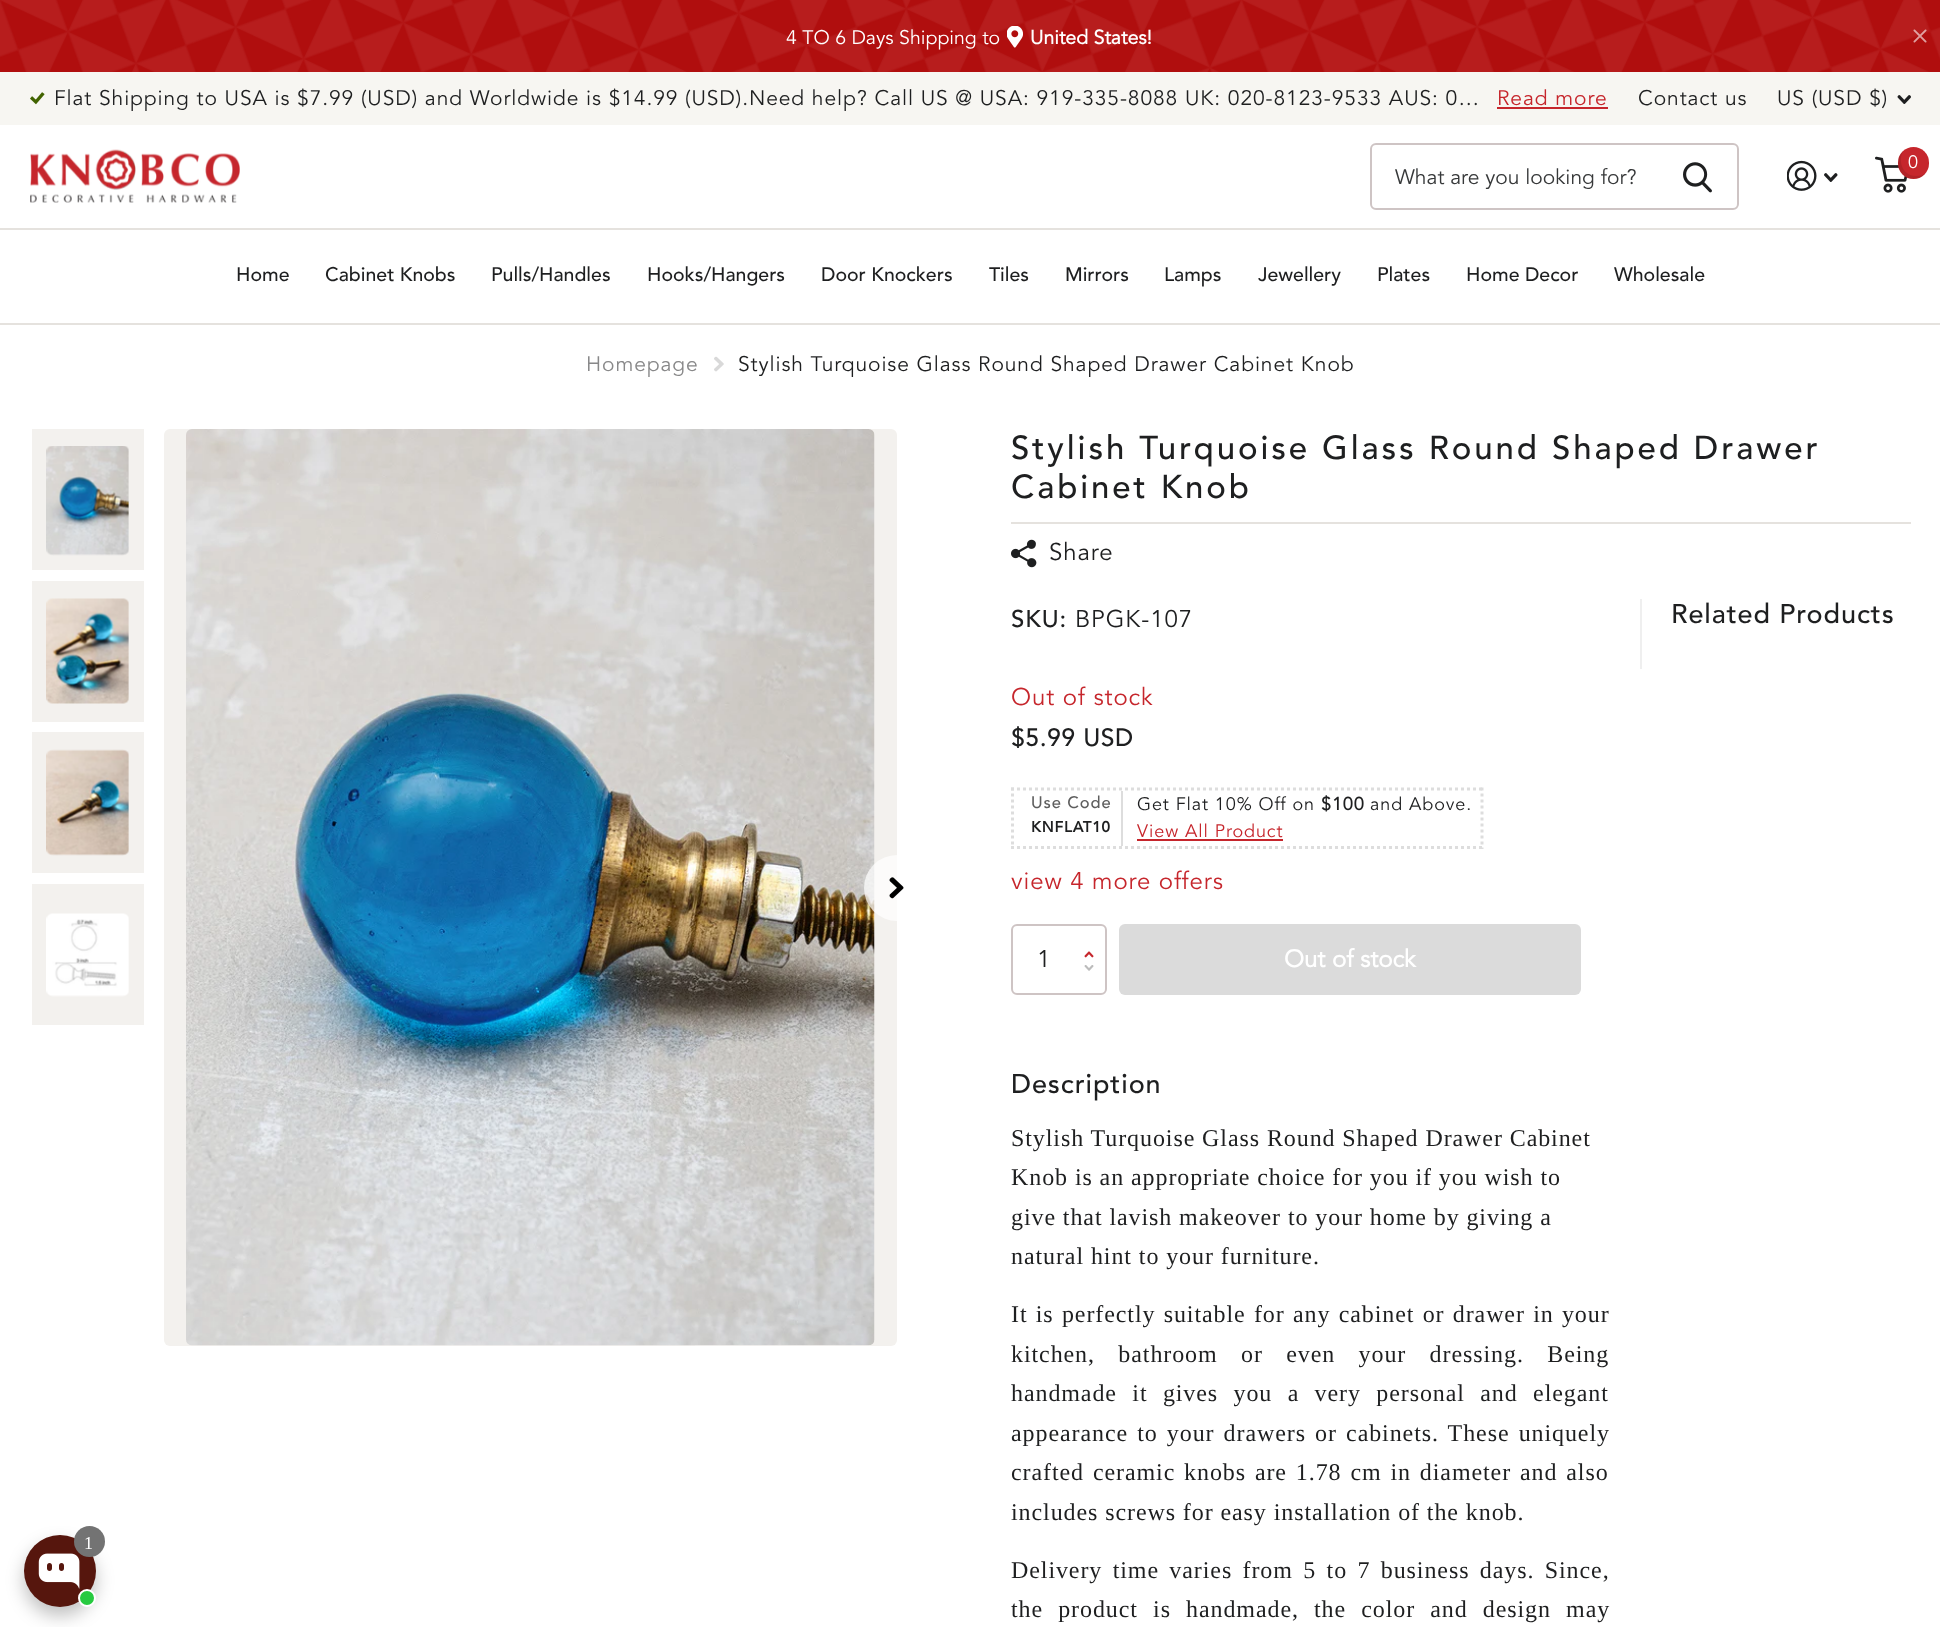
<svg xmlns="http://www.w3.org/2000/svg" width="1940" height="1627">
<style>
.a{font:19.5px 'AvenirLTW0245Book';fill:#fff}
.b{font:bold 19.5px 'AvenirLTW0245Book';fill:#fff}
.c{font:21px 'AvenirLTW0245Book';letter-spacing:0.91px;fill:#1e1f20}
.d{font:21px 'AvenirLTW0245Book';letter-spacing:0.91px;fill:#c6262c}
.e{font:18px 'AvenirLTW0245Book';letter-spacing:0.91px;fill:#fff}
.f{font:21px 'AvenirLTW0245Book';fill:#37393a}
.g{font:500 19.5px 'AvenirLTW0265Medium';fill:#1e1f20}
.h{font:21px 'AvenirLTW0245Book';letter-spacing:0.91px;fill:#888889}
.i{font:500 33px 'AvenirLTW0265Medium';letter-spacing:2.9px;fill:#1e1f20}
.j{font:24px 'AvenirLTW0245Book';letter-spacing:0.91px;fill:#1e1f20}
.k{font:500 24px 'AvenirLTW0265Medium';letter-spacing:0.91px;fill:#1e1f20}
.l{font:24px 'AvenirLTW0245Book';letter-spacing:0.91px;fill:#c6262c}
.m{font:bold 24px 'AvenirLTW0245Book';letter-spacing:0.91px;fill:#1e1f20}
.n{font:500 16.5px 'AvenirLTW0265Medium';letter-spacing:0.91px;fill:#5e5e5e}
.o{font:bold 15px 'AvenirLTW0265Medium';letter-spacing:0.91px;fill:#1e1f20}
.p{font:18px 'AvenirLTW0245Book';letter-spacing:0.91px;fill:#1e1f20}
.q{font:bold 18px 'AvenirLTW0245Book';letter-spacing:0.91px;fill:#1e1f20}
.r{font:18px 'AvenirLTW0245Book';letter-spacing:0.91px;fill:#c6262c}
.s{font:24px 'AvenirLTW0245Book';fill:#1e1f20}
.t{font:bold 24px 'AvenirLTW0245Book';fill:#fff}
.u{font:500 27px 'AvenirLTW0265Medium';letter-spacing:0.91px;fill:#1e1f20}
.v{font:24px Liberation Serif;letter-spacing:0.91px;fill:#1e1f20}
.w{font:18px Liberation Serif;letter-spacing:0.91px;fill:#fff}
</style>
<rect width="100%" height="100%" fill="#fff"/>
<path fill="#b00e0e" d="M0 0h1940v72H0z"/>
<image href="1.png" x="0" y="0" width="1940" height="72"/>
<image href="2.png" x="1007" y="26" width="16" height="22"/>
<image href="3.png" x="1913" y="29" width="14" height="14"/>
<path fill="#f7f6f2" d="M0 72h1940v53H0z"/>
<image href="4.png" x="30" y="92" width="15" height="13"/>
<path fill="#c6262c" d="M1497 107h111v2H1497z"/>
<image href="5.png" x="1897" y="95" width="14" height="9"/>
<image href="6.png" x="1787" y="160" width="30" height="31"/>
<image href="7.png" x="1824" y="173" width="14" height="9"/>
<image href="8.png" x="1875" y="156" width="33" height="37"/>
<rect fill="#c6262c" x="1898" y="147" width="31" height="32" rx="15.5"/>
<path fill="#0000001a" d="M1926 173c-2.5 2-6 3-10 3c-14 0-18.5-16-12.5-25.5c-7 6-7.5 17.5-1 24c6.5 6.5 18 5.5 23.5-1.5z"/>
<image href="9.png" x="30" y="149" width="210" height="54"/>
<rect fill="none" stroke="#cec4c4" stroke-width="2" x="1371" y="144" width="367" height="65" rx="5"/>
<image href="10.png" x="1683" y="162" width="29" height="31"/>
<path fill="#e5e2de" d="M0 228h1940v2H0z"/>
<path fill="#e5e2de" d="M0 323h1940v2H0z"/>
<image href="11.png" x="714" y="356" width="10" height="16"/>
<path fill="#f3f1ee" d="M32 429h112v141H32z"/>
<image href="12.png" x="46" y="446" width="83" height="110"/>
<path fill="#f3f1ee" d="M32 581h112v141H32z"/>
<image href="13.png" x="46" y="598" width="83" height="106"/>
<path fill="#f3f1ee" d="M32 732h112v141H32z"/>
<image href="14.png" x="46" y="749" width="83" height="107"/>
<path fill="#f3f1ee" d="M32 884h112v141H32z"/>
<image href="15.png" x="46" y="913" width="83" height="84"/>
<rect fill="#f3f1ee" x="164" y="429" width="733" height="917" rx="6"/>
<image href="17.png" x="186" y="429" width="689" height="917"/>
<circle fill="#ffffffb3" cx="897" cy="888" r="33"/>
<image href="16.png" x="889" y="877" width="15" height="22"/>
<path fill="#e5e2de" d="M1011 522h900v2H1011z"/>
<image href="18.png" x="1011" y="539" width="26" height="29"/>
<path fill="none" stroke="#ddd" stroke-width="3" stroke-dasharray="3 3" d="M1011 789h472.5"/>
<path fill="none" stroke="#ddd" stroke-width="3" stroke-dasharray="3 3" d="M1482 787.5v61.5"/>
<path fill="none" stroke="#ddd" stroke-width="3" stroke-dasharray="3 3" d="M1011 847.5h472.5"/>
<path fill="none" stroke="#ddd" stroke-width="3" stroke-dasharray="3 3" d="M1012.5 787.5v61.5"/>
<path fill="#ddd" d="M1121 791h2v55H1121z"/>
<path fill="#c6262c" d="M1137 839h146v2H1137z"/>
<rect fill="none" stroke="#cec4c4" stroke-width="2" x="1012" y="925" width="94" height="69" rx="5"/>
<image href="19.png" x="1084" y="951" width="10" height="7"/>
<image href="20.png" x="1084" y="965" width="10" height="6"/>
<rect fill="#dbdbdb" x="1119" y="924" width="462" height="71" rx="6"/>
<path fill="#efefef" d="M1640 599h2v70H1640z"/>
<rect fill="#00000040" filter="blur(9px)" x="24" y="1544" width="72" height="72" rx="36"/>
<circle fill="#56160d" cx="60" cy="1571" r="36"/>
<image href="21.png" x="38" y="1553" width="42" height="36"/>
<circle fill="#27ca40" stroke="#fff" stroke-width="2" cx="87" cy="1598" r="8"/>
<circle fill="#737373" cx="89.5" cy="1541.5" r="15.5"/>
<text class="a" x="786" y="44">4 TO 6 Days Shipping to</text>
<text class="b" x="1030" y="44">United States!</text>
<text class="c" x="54" y="105">Flat Shipping to USA is $7.99 (USD) and Worldwide is $14.99 (USD).Need help? Call US @ USA: 919-335-8088 UK: 020-8123-9533 AUS: 0…</text>
<text class="d" x="1497" y="105">Read more</text>
<text class="c" x="1638" y="105">Contact us</text>
<text class="c" x="1777" y="105">US (USD $)</text>
<text class="e" x="1908" y="168">0</text>
<text class="f" x="1395" y="184">What are you looking for?</text>
<text class="g" x="236" y="281">Home</text>
<text class="g" x="325" y="281">Cabinet Knobs</text>
<text class="g" x="491" y="281">Pulls/Handles</text>
<text class="g" x="647" y="281">Hooks/Hangers</text>
<text class="g" x="821" y="281">Door Knockers</text>
<text class="g" x="989" y="281">Tiles</text>
<text class="g" x="1065" y="281">Mirrors</text>
<text class="g" x="1164" y="281">Lamps</text>
<text class="g" x="1258" y="281">Jewellery</text>
<text class="g" x="1377" y="281">Plates</text>
<text class="g" x="1466" y="281">Home Decor</text>
<text class="g" x="1614" y="281">Wholesale</text>
<text class="h" x="586" y="371">Homepage</text>
<text class="c" x="738" y="371">Stylish Turquoise Glass Round Shaped Drawer Cabinet Knob</text>
<text class="i" x="1011" y="459">Stylish Turquoise Glass Round Shaped Drawer</text>
<text class="i" x="1011" y="498">Cabinet Knob</text>
<text class="j" x="1049" y="560">Share</text>
<text class="k" x="1011" y="627">SKU:</text>
<text class="j" x="1075" y="627">BPGK-107</text>
<text class="l" x="1011" y="705">Out of stock</text>
<text class="m" x="1011" y="746">$5.99 USD</text>
<text class="n" x="1031" y="808">Use Code</text>
<text class="o" x="1031" y="832">KNFLAT10</text>
<text class="p" x="1137" y="810">Get Flat 10% Off on</text>
<text class="q" x="1321" y="810">$100</text>
<text class="p" x="1370" y="810">and Above.</text>
<text class="r" x="1137" y="837">View All Product</text>
<text class="l" x="1011" y="889">view 4 more offers</text>
<text class="s" x="1037" y="967">1</text>
<text class="t" x="1284" y="967">Out of stock</text>
<text class="u" x="1011" y="1093">Description</text>
<text class="v" x="1011" y="1146">Stylish Turquoise Glass Round Shaped Drawer Cabinet</text>
<text class="v" x="1011" y="1185">Knob is an appropriate choice for you if you wish to</text>
<text class="v" x="1011" y="1225">give that lavish makeover to your home by giving a</text>
<text class="v" x="1011" y="1264">natural hint to your furniture.</text>
<text class="v" x="1011" y="1322" word-spacing="1.4">It is perfectly suitable for any cabinet or drawer in your</text>
<text class="v" x="1011" y="1362" word-spacing="16.5">kitchen, bathroom or even your dressing. Being</text>
<text class="v" x="1011" y="1401" word-spacing="8.5">handmade it gives you a very personal and elegant</text>
<text class="v" x="1011" y="1441" word-spacing="2.25">appearance to your drawers or cabinets. These uniquely</text>
<text class="v" x="1011" y="1480" word-spacing="2">crafted ceramic knobs are 1.78 cm in diameter and also</text>
<text class="v" x="1011" y="1520">includes screws for easy installation of the knob.</text>
<text class="v" x="1011" y="1578" word-spacing="3.5">Delivery time varies from 5 to 7 business days. Since,</text>
<text class="v" x="1011" y="1617" word-spacing="8.25">the product is handmade, the color and design may</text>
<text class="u" x="1671" y="623">Related Products</text>
<text class="w" x="84" y="1549">1</text>
</svg>
